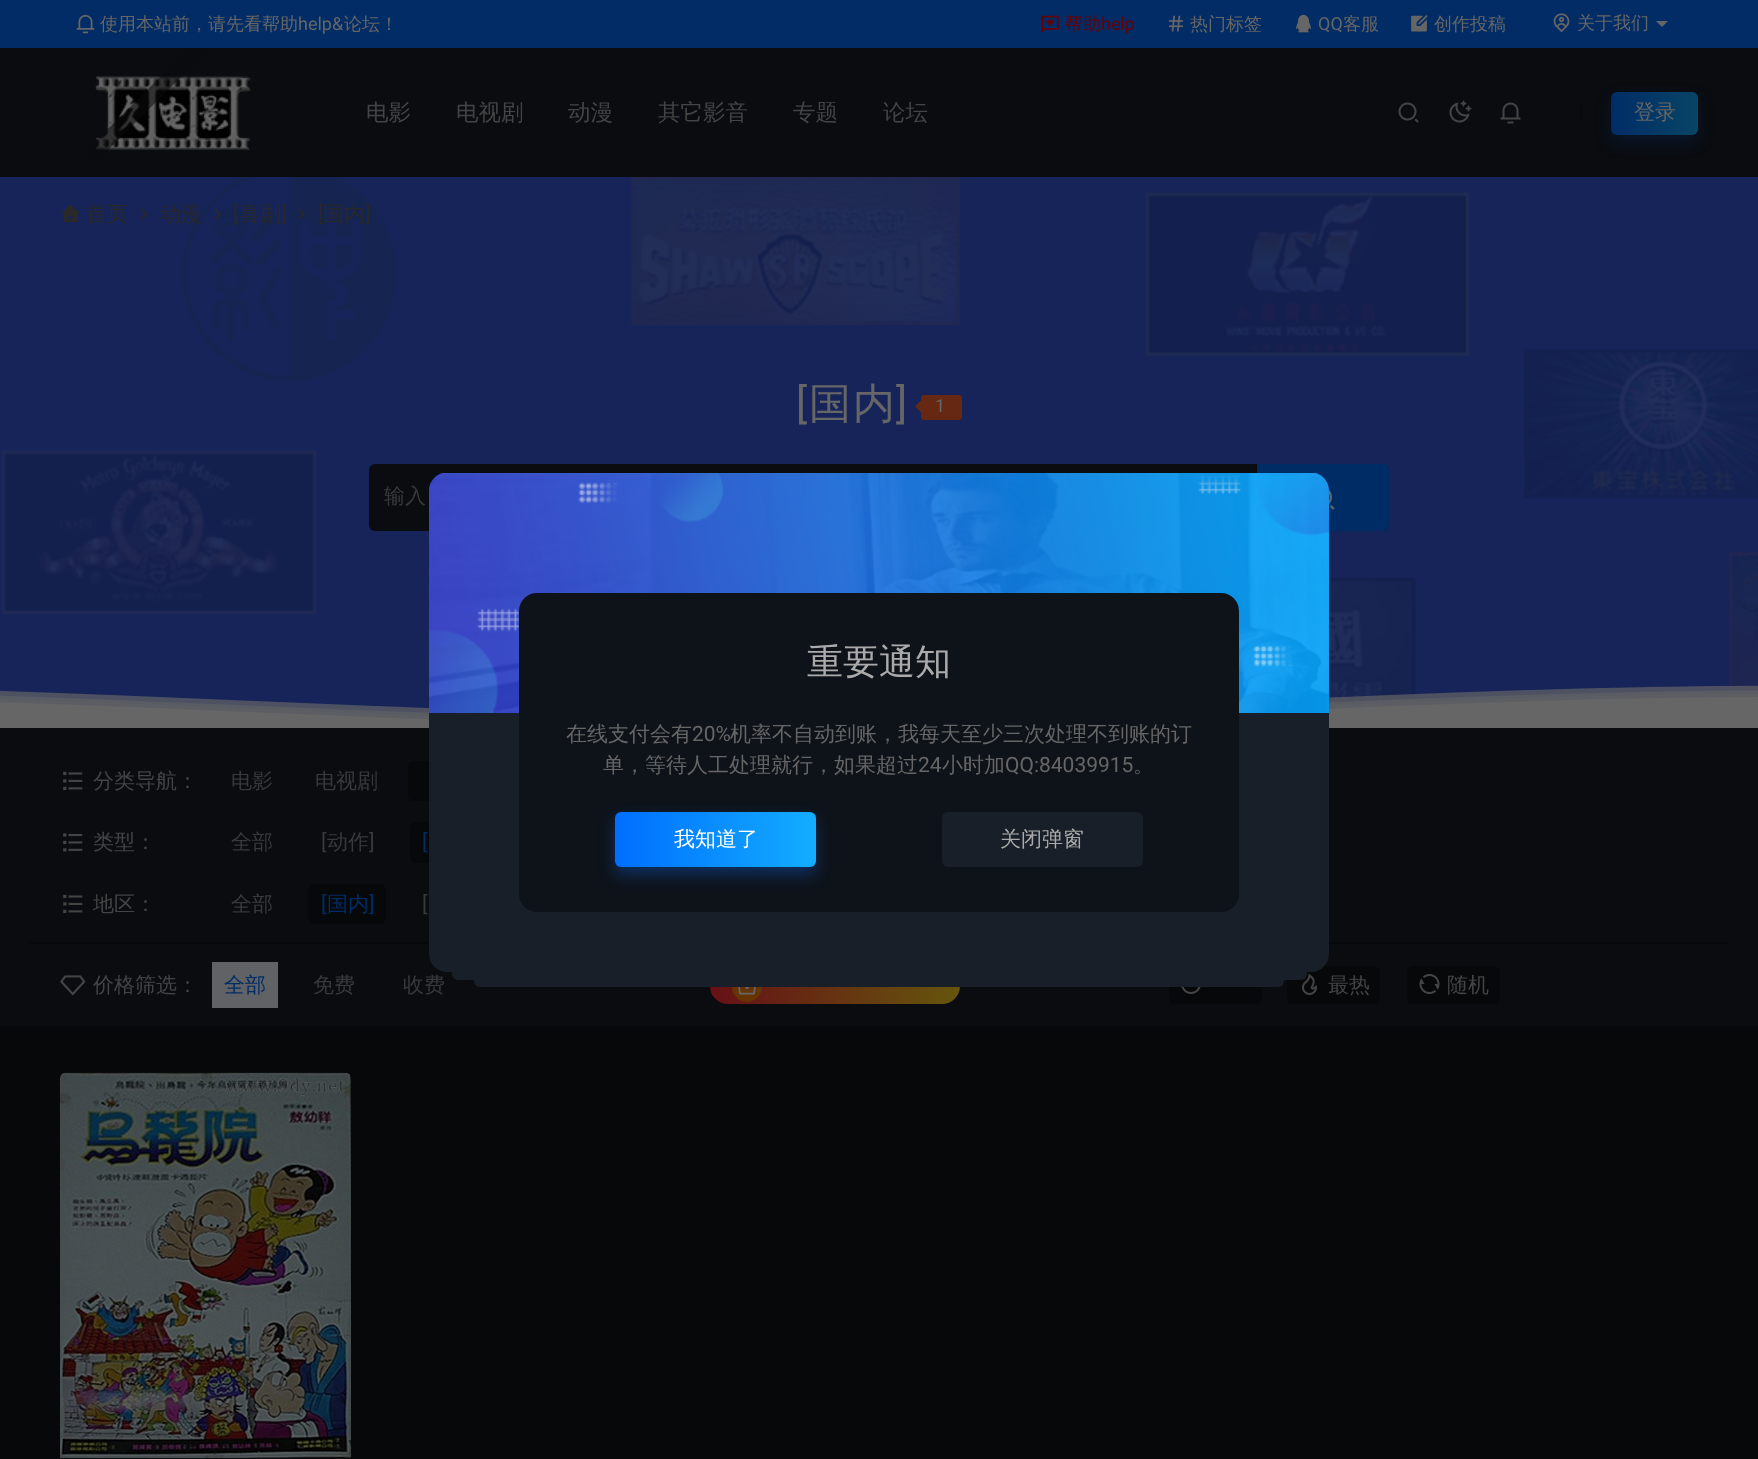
<svg xmlns="http://www.w3.org/2000/svg" width="1758" height="1459">
<style>
.a{font:500 18px WenQuanYi Zen Hei;fill:#666}
.b{font:18px Roboto;fill:#666}
.c{font:500 18px WenQuanYi Zen Hei;fill:#650208}
.d{font:18px Roboto;fill:#650208}
.e{font:500 22.5px WenQuanYi Zen Hei;fill:#444}
.f{font:500 21px WenQuanYi Zen Hei;fill:#666}
.g{font:500 21px WenQuanYi Zen Hei;fill:#292929}
.h{font:21px Roboto;fill:#292929}
.i{font:42px Roboto;letter-spacing:2px;fill:#666}
.j{font:500 42px WenQuanYi Zen Hei;letter-spacing:2px;fill:#666}
.k{font:18px Roboto;letter-spacing:2px;fill:#666}
.l{font:500 21px WenQuanYi Zen Hei;fill:#38393b}
.m{font:500 21px WenQuanYi Zen Hei;fill:#444}
.n{font:21px Roboto;fill:#38393b}
.o{font:21px Roboto;fill:#002c66}
.p{font:500 21px WenQuanYi Zen Hei;fill:#002c66}
.q{font:500 36px WenQuanYi Zen Hei;fill:#aaa}
.r{font:21px Roboto;fill:#666}
.s{font:500 21px WenQuanYi Zen Hei;fill:#fff}
.t{font:500 21px WenQuanYi Zen Hei;fill:#aaa}
</style>
<defs>
<linearGradient id="g1" gradientUnits="userSpaceOnUse" x1="1611" y1="113" x2="1698" y2="113"><stop offset="0" stop-color="#002c66"/><stop offset="1" stop-color="#084566"/></linearGradient>
<linearGradient id="g2" gradientUnits="userSpaceOnUse" x1="710" y1="986" x2="960" y2="986"><stop offset="0" stop-color="#661016"/><stop offset="1" stop-color="#65560d"/></linearGradient>
<linearGradient id="g3" gradientUnits="userSpaceOnUse" x1="615" y1="839" x2="816" y2="839"><stop offset="0" stop-color="#006eff"/><stop offset="1" stop-color="#13adff"/></linearGradient>
</defs>
<rect width="100%" height="100%" fill="#06080a"/>
<path fill="#0a0c10" d="M0 48h1758v129H0z"/>
<image href="7.png" x="95" y="76" width="156" height="74"/>
<path fill="#0b0c0d8a" d="M85 152l148-148l10 11l-147 147z"/>
<path fill="#012c66" d="M0 0h1758v48H0z"/>
<image href="1.png" x="76" y="14" width="19" height="20"/>
<image href="2.png" x="1041" y="15" width="18" height="18"/>
<image href="3.png" x="1169" y="15" width="14" height="17"/>
<image href="4.png" x="1296" y="14" width="15" height="19"/>
<image href="5.png" x="1411" y="15" width="17" height="17"/>
<image href="6.png" x="1553" y="13" width="17" height="20"/>
<path fill="#666" d="M1656 21h12l-6 6z"/>
<image href="8.png" x="1398" y="102" width="21" height="21"/>
<image href="9.png" x="1449" y="100" width="23" height="23"/>
<image href="10.png" x="1500" y="102" width="21" height="22"/>
<path fill="#07090b" d="M1580 104h2v18H1580z"/>
<rect fill="#062c654d" filter="blur(7.5px)" x="1611" y="99" width="87" height="44" rx="6"/>
<rect fill="url(#g1)" x="1611" y="92" width="87" height="43" rx="6"/>
<image href="15.png" x="0" y="177" width="1758" height="543"/>
<image href="11.png" x="61" y="204" width="19" height="18"/>
<image href="12.png" x="140" y="208" width="8" height="12"/>
<image href="13.png" x="214" y="208" width="7" height="12"/>
<image href="14.png" x="298" y="208" width="7" height="12"/>
<rect fill="#662713" x="921" y="395" width="41" height="25" rx="3"/>
<path fill="#662713" d="M924 397.5v18l-9-9z"/>
<rect fill="#0a0c10" x="369" y="464" width="1020" height="67" rx="6"/>
<path fill="#002c66" d="M1257 464h126c3.5 0 6 2.5 6 6v55c0 3.5-2.5 6-6 6h-126z"/>
<image href="16.png" x="1328" y="489" width="7" height="21"/>
<image href="17.png" x="0" y="685" width="1758" height="43"/>
<path fill="#0a0c10" d="M0 728h1758v298H0z"/>
<image href="18.png" x="63" y="771" width="20" height="19"/>
<rect fill="#06080a" x="408" y="761" width="66" height="40" rx="6"/>
<image href="19.png" x="63" y="833" width="20" height="19"/>
<rect fill="#06080a" x="410" y="822" width="78" height="41" rx="6"/>
<image href="18.png" x="63" y="894" width="20" height="19"/>
<rect fill="#06080a" x="309" y="884" width="77" height="40" rx="6"/>
<path fill="#06080a" d="M30 942h1698v2H30z"/>
<image href="20.png" x="60" y="975" width="26" height="21"/>
<path fill="#606266" d="M212 962h66v46H212z"/>
<rect fill="url(#g2)" x="710" y="968" width="250" height="36" rx="18"/>
<circle fill="#663400" cx="747" cy="987" r="15"/>
<image href="21.png" x="738" y="987" width="18" height="8"/>
<rect fill="#06080a" x="1169" y="966" width="93" height="38" rx="6"/>
<image href="22.png" x="1181" y="987" width="20" height="7"/>
<rect fill="#06080a" x="1287" y="966" width="93" height="38" rx="6"/>
<image href="23.png" x="1302" y="973" width="15" height="22"/>
<rect fill="#06080a" x="1407" y="966" width="93" height="38" rx="6"/>
<image href="24.png" x="1419" y="974" width="21" height="20"/>
<rect fill="#0a0c10" x="60" y="1073" width="291" height="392" rx="6"/>
<image href="25.png" x="60" y="1072" width="291" height="386"/>
<rect fill="#191f28" x="452" y="950" width="855" height="30" rx="6"/>
<rect fill="#191f28" x="474" y="957" width="810" height="30" rx="6"/>
<rect fill="#191f28" x="429" y="473" width="900" height="499" rx="18"/>
<image href="26.png" x="429" y="473" width="900" height="240"/>
<rect fill="#0e131a" x="519" y="593" width="720" height="319" rx="18"/>
<rect fill="#106efd4d" filter="blur(7.5px)" x="615" y="819" width="201" height="56" rx="6"/>
<rect fill="url(#g3)" x="615" y="812" width="201" height="55" rx="6"/>
<rect fill="#191f28" x="942" y="812" width="201" height="55" rx="6"/>
<text class="a" x="100" y="30">使用本站前，请先看帮助</text>
<text class="b" x="298" y="30">help&amp;</text>
<text class="a" x="344" y="30">论坛！</text>
<text class="c" x="1065" y="30">帮助</text>
<text class="d" x="1101" y="30">help</text>
<text class="a" x="1190" y="30">热门标签</text>
<text class="b" x="1318" y="30">QQ</text>
<text class="a" x="1343" y="30">客服</text>
<text class="a" x="1434" y="30">创作投稿</text>
<text class="a" x="1577" y="29">关于我们</text>
<text class="e" x="366" y="120">电影</text>
<text class="e" x="456" y="120">电视剧</text>
<text class="e" x="568" y="120">动漫</text>
<text class="e" x="658" y="120">其它影音</text>
<text class="e" x="793" y="120">专题</text>
<text class="e" x="883" y="120">论坛</text>
<text class="f" x="1634" y="119">登录</text>
<text class="g" x="86" y="221">首页</text>
<text class="g" x="160" y="221">动漫</text>
<text class="h" x="233" y="221">[</text>
<text class="g" x="239" y="221">喜剧</text>
<text class="h" x="281" y="221">]</text>
<text class="h" x="318" y="221">[</text>
<text class="g" x="323" y="221">国内</text>
<text class="h" x="365" y="221">]</text>
<text class="i" x="796" y="418">[</text>
<text class="j" x="809" y="418">国内</text>
<text class="i" x="896" y="418">]</text>
<text class="k" x="935" y="412">1</text>
<text class="l" x="384" y="503">输入</text>
<text class="m" x="93" y="788">分类导航：</text>
<text class="l" x="231" y="788">电影</text>
<text class="l" x="315" y="788">电视剧</text>
<text class="m" x="93" y="849">类型：</text>
<text class="l" x="231" y="849">全部</text>
<text class="n" x="321" y="849">[</text>
<text class="l" x="327" y="849">动作</text>
<text class="n" x="369" y="849">]</text>
<text class="o" x="422" y="849">[</text>
<text class="m" x="93" y="911">地区：</text>
<text class="l" x="231" y="911">全部</text>
<text class="o" x="321" y="911">[</text>
<text class="p" x="327" y="911">国内</text>
<text class="o" x="369" y="911">]</text>
<text class="n" x="422" y="911">[</text>
<text class="m" x="93" y="992">价格筛选：</text>
<text class="p" x="224" y="992">全部</text>
<text class="l" x="313" y="992">免费</text>
<text class="l" x="403" y="992">收费</text>
<text class="m" x="1328" y="992">最热</text>
<text class="m" x="1447" y="992">随机</text>
<text class="q" x="807" y="674">重要通知</text>
<text class="f" x="566" y="741">在线支付会有</text>
<text class="r" x="692" y="741">20%</text>
<text class="f" x="730" y="741">机率不自动到账，我每天至少三次处理不到账的订</text>
<text class="f" x="603" y="772">单，等待人工处理就行，如果超过</text>
<text class="r" x="918" y="772">24</text>
<text class="f" x="942" y="772">小时加</text>
<text class="r" x="1005" y="772">QQ:84039915</text>
<text class="f" x="1133" y="772">。</text>
<text class="s" x="674" y="846">我知道了</text>
<text class="t" x="1000" y="846">关闭弹窗</text>
</svg>
